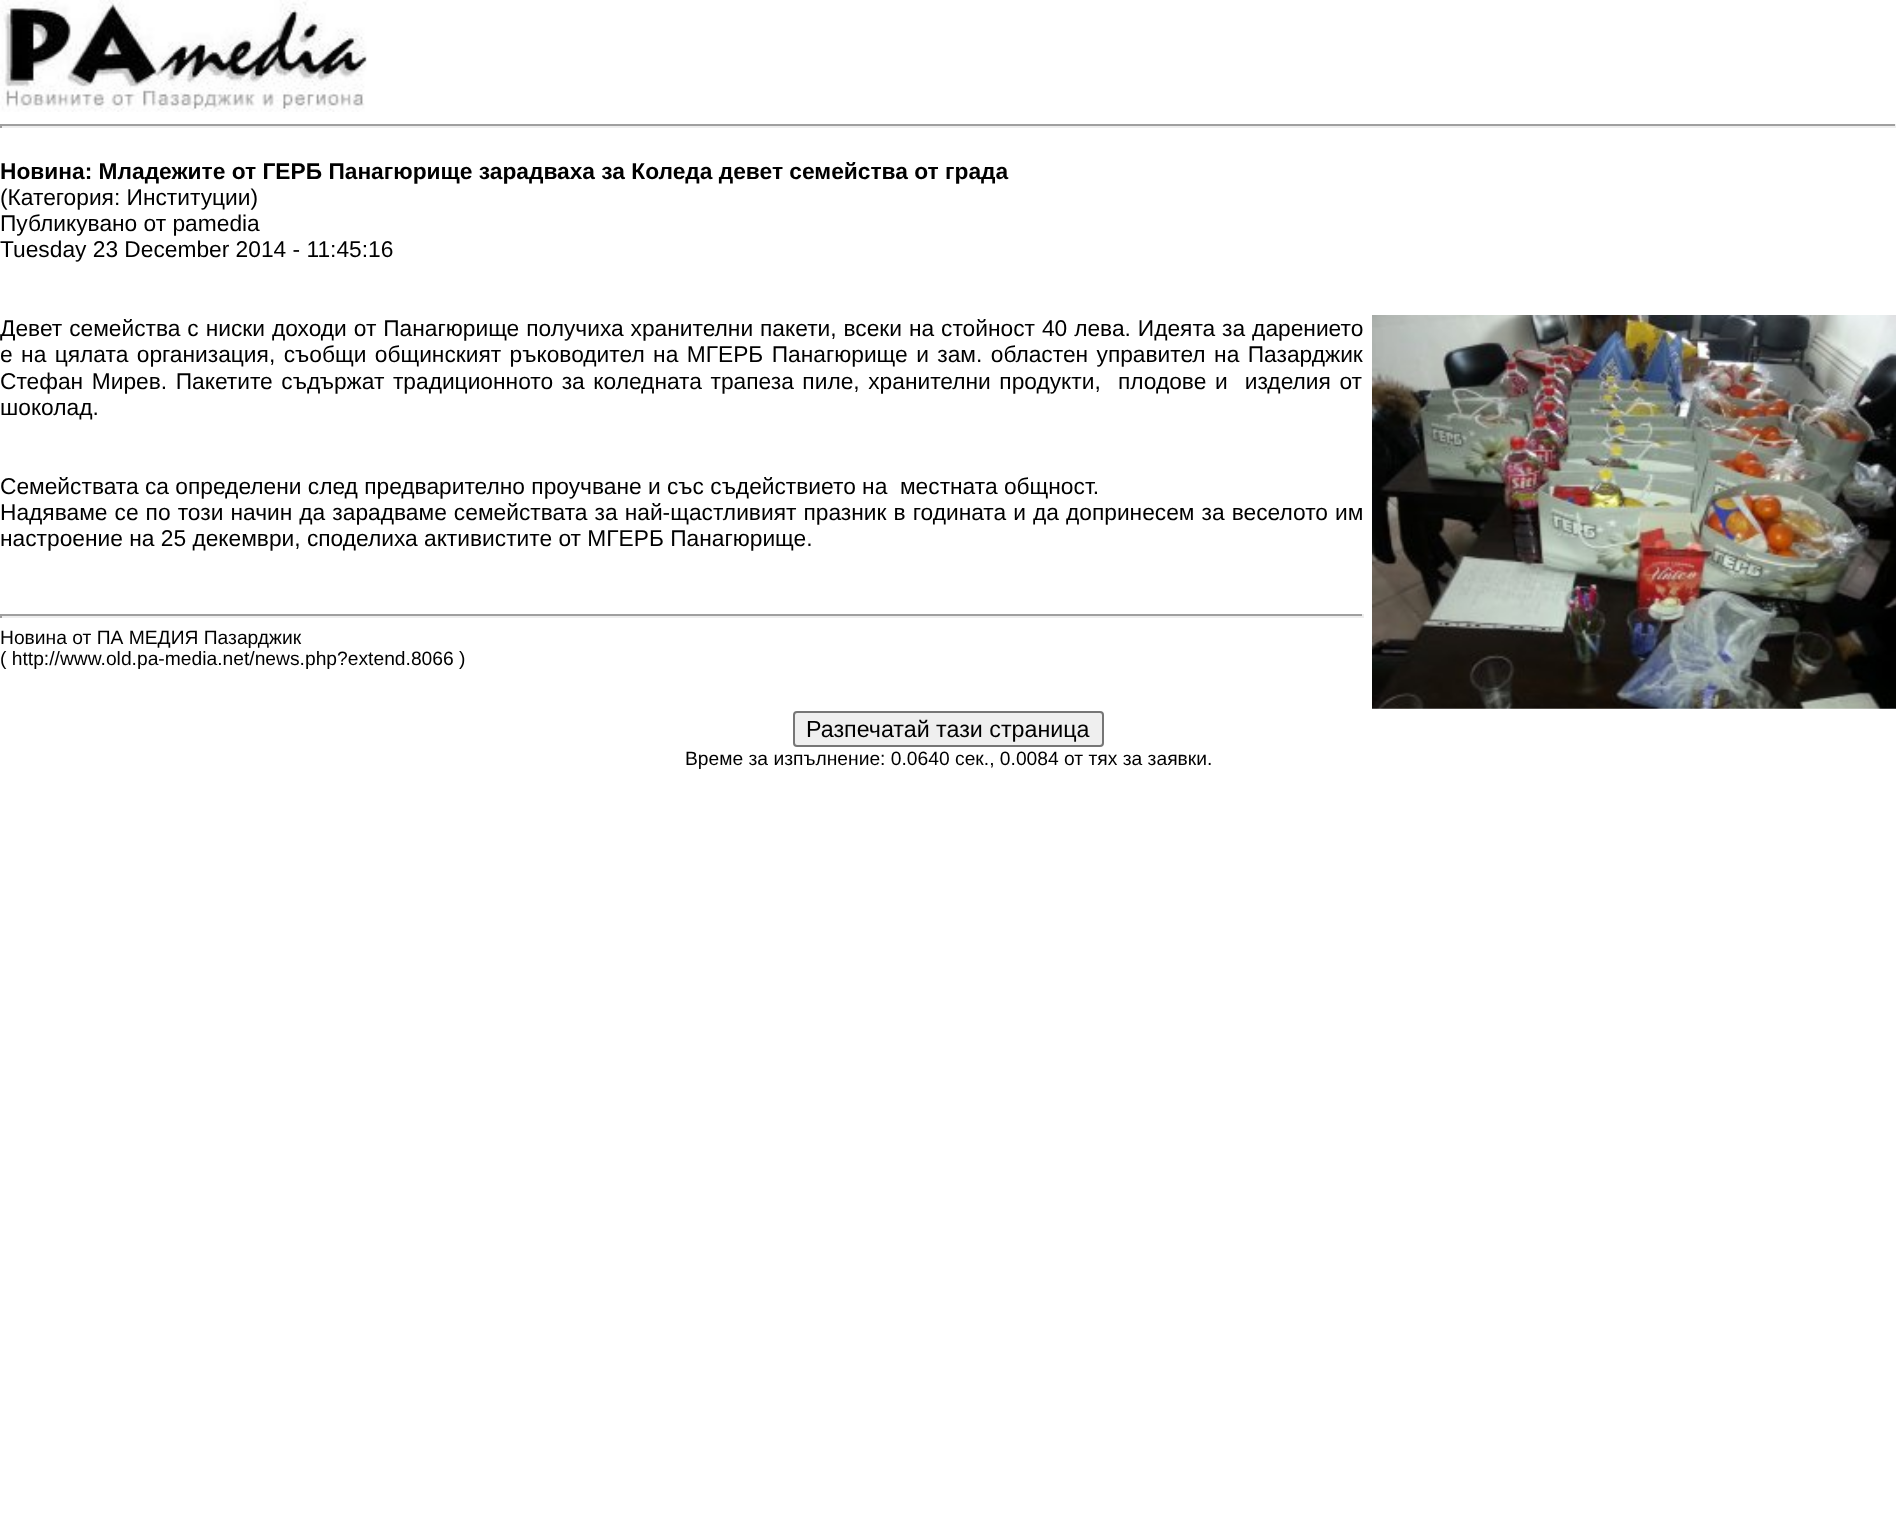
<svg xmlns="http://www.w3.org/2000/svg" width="1896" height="1520">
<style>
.a{font:bold 22.75px Liberation Sans;fill:#000}
.b{font:22.75px Liberation Sans;fill:#000}
.c{font:19.25px Liberation Sans;fill:#000}
.d{font:23.25px Liberation Sans;fill:#000}
</style>
<rect width="100%" height="100%" fill="#fff"/>
<image href="1.png" x="0" y="0" width="367" height="112"/>
<path fill="#9f9f9f" d="M0 124h1896v2H0z"/>
<path fill="#eee" d="M1895 124h1v4H1895z"/>
<path fill="#eee" d="M0 126h1896v2H0z"/>
<path fill="#9f9f9f" d="M0 124h2v4H0z"/>
<image href="2.png" x="1372" y="315" width="524" height="394"/>
<path fill="#9f9f9f" d="M0 614h1363v2H0z"/>
<path fill="#eee" d="M1362 614h2v4H1362z"/>
<path fill="#eee" d="M0 616h1363v2H0z"/>
<path fill="#9f9f9f" d="M0 614h2v4H0z"/>
<rect fill="#efefef" stroke="#767676" stroke-width="2" x="794" y="712" width="309" height="34" rx="3"/>
<text class="a" x="0" y="179">Новина: Младежите от ГЕРБ Панагюрище зарадваха за Коледа девет семейства от града</text>
<text class="b" x="0" y="205">(Категория: Институции)</text>
<text class="b" x="0" y="231">Публикувано от pamedia</text>
<text class="b" x="0" y="257">Tuesday 23 December 2014 - 11:45:16</text>
<text class="b" x="0" y="336" word-spacing="0.6">Девет семейства с ниски доходи от Панагюрище получиха хранителни пакети, всеки на стойност 40 лева. Идеята за дарението</text>
<text class="b" x="0" y="362" word-spacing="2.1">е на цялата организация, съобщи общинският ръководител на МГЕРБ Панагюрище и зам. областен управител на Пазарджик</text>
<text class="b" xml:space="preserve" x="0" y="389" word-spacing="2.25">Стефан Мирев. Пакетите съдържат традиционното за коледната трапеза пиле, хранителни продукти,  плодове и  изделия от</text>
<text class="b" x="0" y="415">шоколад.</text>
<text class="b" xml:space="preserve" x="0" y="494">Семействата са определени след предварително проучване и със съдействието на  местната общност.</text>
<text class="b" x="0" y="520" word-spacing="0.75">Надяваме се по този начин да зарадваме семействата за най-щастливият празник в годината и да допринесем за веселото им</text>
<text class="b" x="0" y="546">настроение на 25 декември, споделиха активистите от МГЕРБ Панагюрище.</text>
<text class="c" x="0" y="644">Новина от ПА МЕДИЯ Пазарджик</text>
<text class="c" x="0" y="665">( http://www.old.pa-media.net/news.php?extend.8066 )</text>
<text class="d" x="806" y="737">Разпечатай тази страница</text>
<text class="c" x="685" y="765">Време за изпълнение: 0.0640 сек., 0.0084 от тях за заявки.</text>
</svg>
